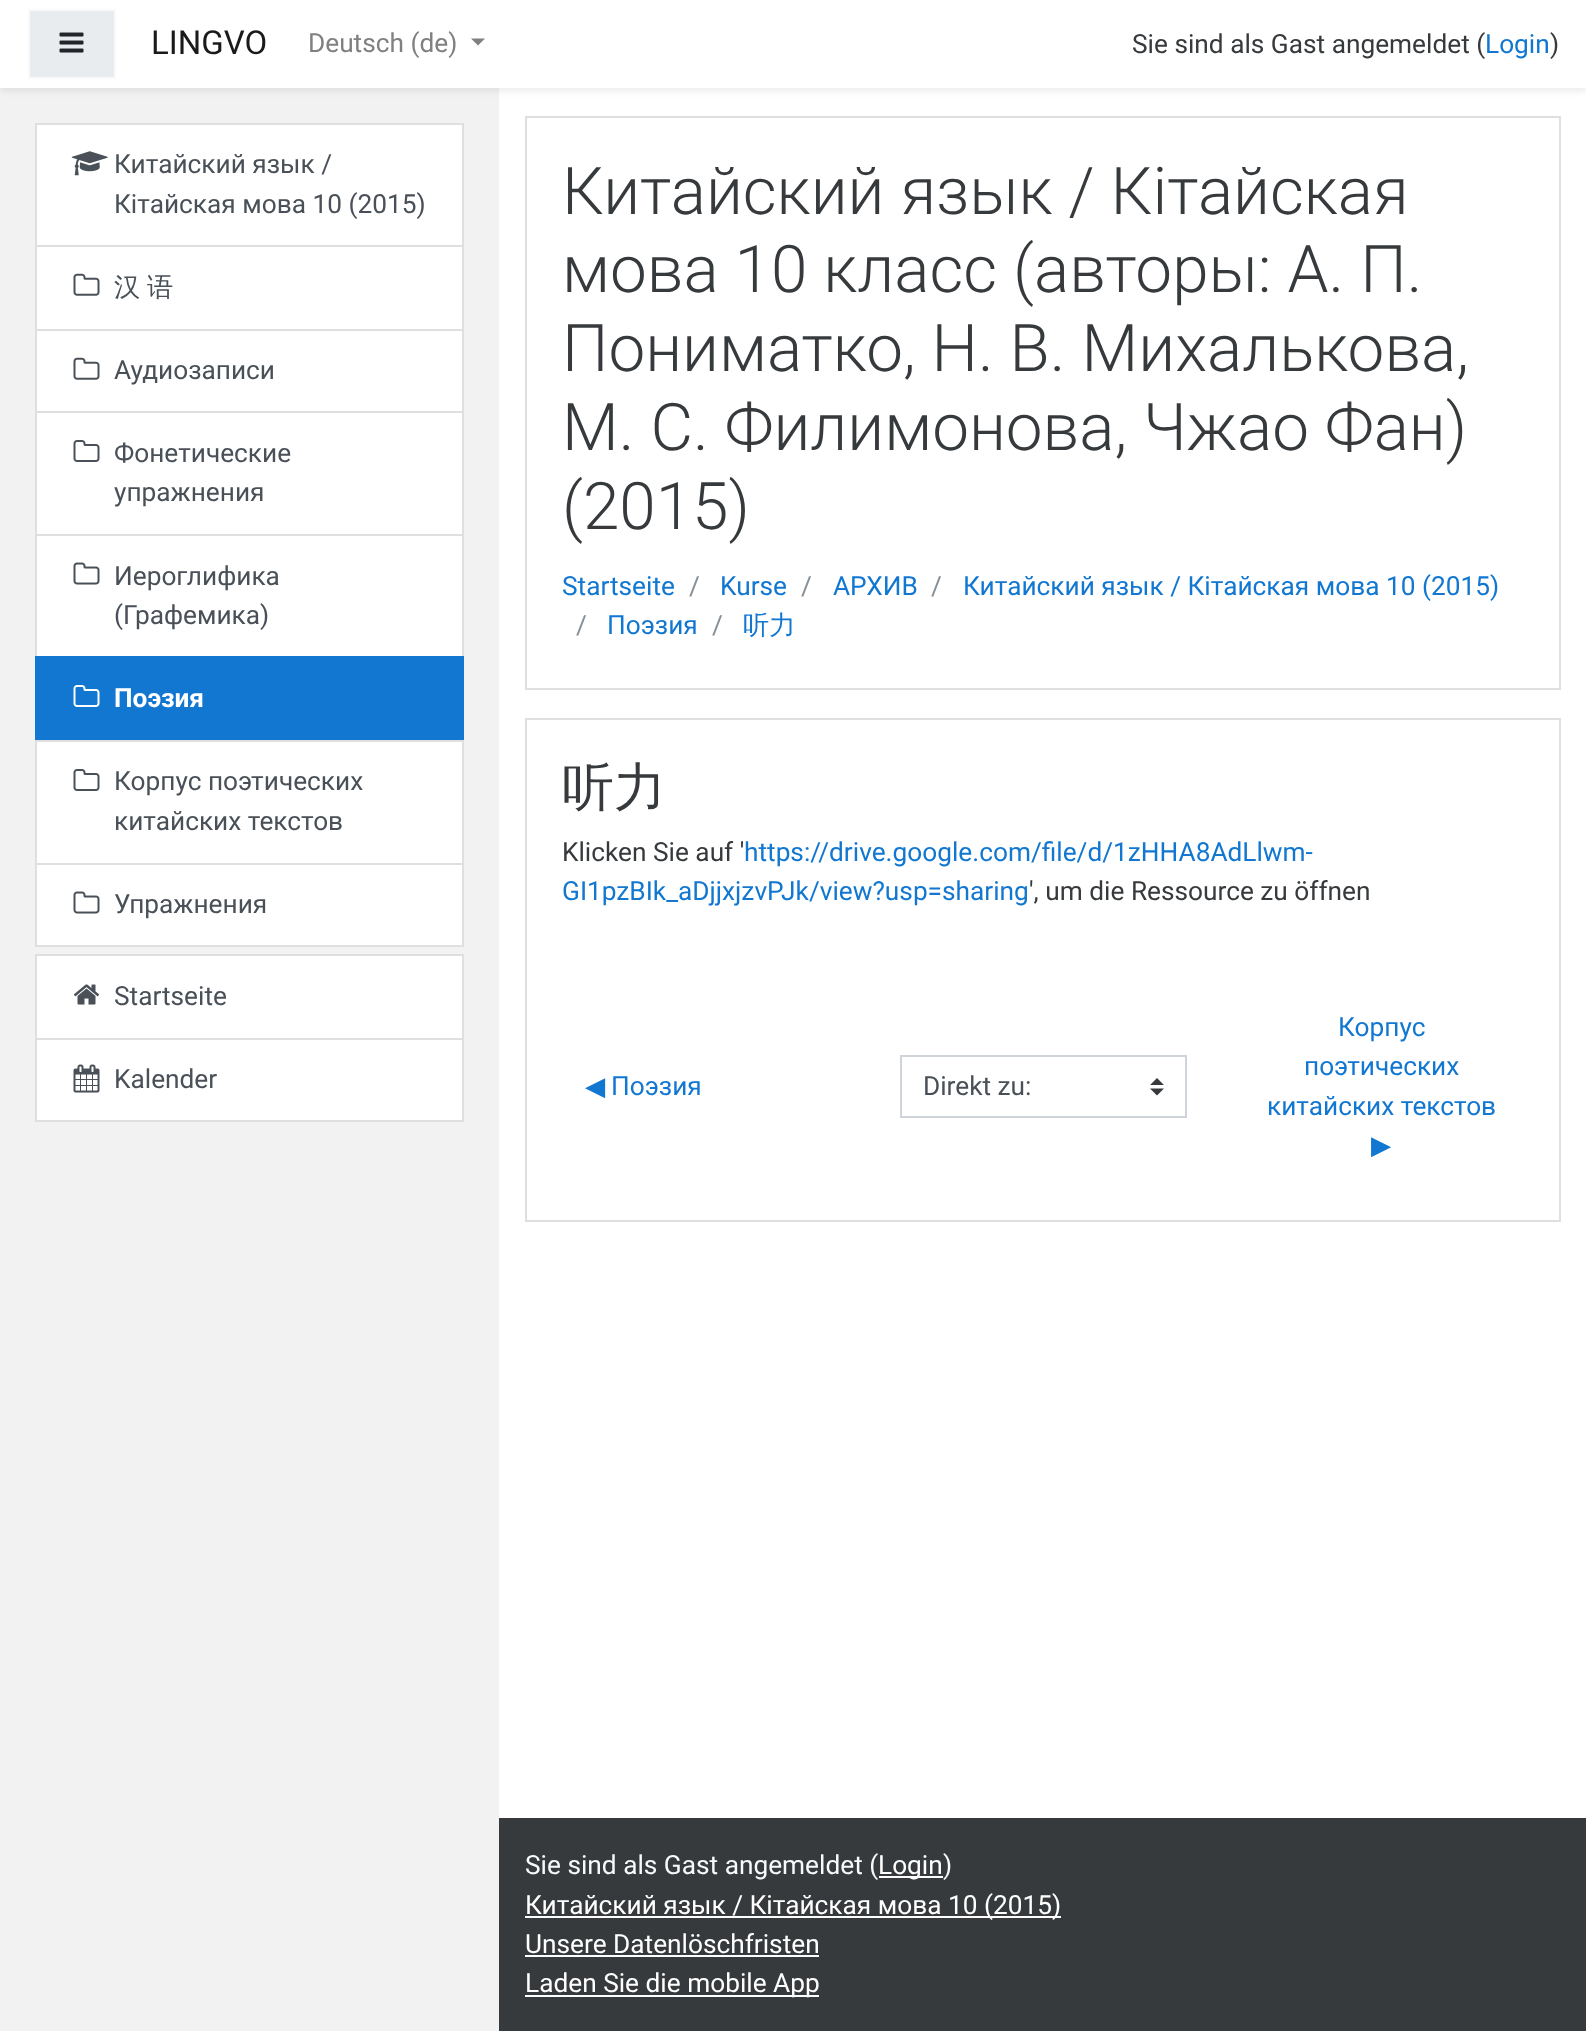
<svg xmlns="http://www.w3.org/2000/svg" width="1586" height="2031">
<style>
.a{font:33px Roboto;fill:#1a1a1a}
.b{font:26.25px Roboto;fill:#808080}
.c{font:26.25px Roboto;fill:#373a3c}
.d{font:26.25px Roboto;fill:#1177d1}
.e{font:26.25px Roboto;fill:#495057}
.f{font:500 26.25px WenQuanYi Zen Hei;fill:#495057}
.g{font:bold 26.25px Roboto;fill:#fff}
.h{font:300 65.6px Roboto;fill:#373a3c}
.i{font:26.25px Roboto;fill:#868e96}
.j{font:500 26.25px WenQuanYi Zen Hei;fill:#1177d1}
.k{font:500 52px WenQuanYi Zen Hei;fill:#373a3c}
.l{font:26.25px DejaVu Sans;fill:#1177d1}
.m{font:26.25px Roboto;fill:#f8f9fa}
.n{font:26.25px Roboto;fill:#fff}
</style>
<rect width="100%" height="100%" fill="#fff"/>
<path fill="#f2f2f2" d="M0 88h499v1943H0z"/>
<path fill="#00000014" filter="blur(3.5px)" d="M0 4h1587v87H0z"/>
<path fill="#fff" d="M0 0h1586v88H0z"/>
<path fill="#e9ecef" stroke="#f8f9fa" stroke-width="2" d="M29 10h86v68H29z"/>
<image href="1.png" x="59" y="32" width="25" height="21"/>
<path fill="#808080" d="M471 38.5h14l-7 7z"/>
<path fill="#fff" stroke="#dfdfdf" stroke-width="2" d="M36 124h427v122H36z"/>
<image href="2.png" x="71" y="151" width="37" height="25"/>
<path fill="#fff" stroke="#dfdfdf" stroke-width="2" d="M36 246h427v84H36z"/>
<image href="3.png" x="73" y="273" width="27" height="23"/>
<path fill="#fff" stroke="#dfdfdf" stroke-width="2" d="M36 330h427v82H36z"/>
<image href="3.png" x="73" y="357" width="27" height="23"/>
<path fill="#fff" stroke="#dfdfdf" stroke-width="2" d="M36 412h427v123H36z"/>
<image href="4.png" x="73" y="440" width="27" height="22"/>
<path fill="#fff" stroke="#dfdfdf" stroke-width="2" d="M36 535h427v122H36z"/>
<image href="5.png" x="73" y="562" width="27" height="23"/>
<path fill="#1177d1" d="M35 656h429v84H35z"/>
<image href="6.png" x="73" y="685" width="27" height="22"/>
<path fill="#fff" stroke="#dfdfdf" stroke-width="2" d="M36 741h427v123H36z"/>
<image href="4.png" x="73" y="769" width="27" height="22"/>
<path fill="#fff" stroke="#dfdfdf" stroke-width="2" d="M36 864h427v82H36z"/>
<image href="5.png" x="73" y="891" width="27" height="23"/>
<path fill="#fff" stroke="#dfdfdf" stroke-width="2" d="M36 955h427v84H36z"/>
<image href="7.png" x="73" y="984" width="27" height="21"/>
<path fill="#fff" stroke="#dfdfdf" stroke-width="2" d="M36 1039h427v82H36z"/>
<image href="8.png" x="73" y="1064" width="27" height="29"/>
<path fill="none" stroke="#dfdfdf" stroke-width="2" d="M526 117h1034v572H526z"/>
<path fill="none" stroke="#dfdfdf" stroke-width="2" d="M526 719h1034v502H526z"/>
<path fill="#373a3c" d="M1157 1078l-7 7h14zm0 17.5l-7-7h14z"/>
<path fill="none" stroke="#ced4da" stroke-width="2" d="M901 1056h285v61H901z"/>
<path fill="#373a3c" d="M499 1818h1087v213H499z"/>
<path fill="#fff" d="M879 1876h64v2H879z"/>
<path fill="#fff" d="M525 1916h536v2H525z"/>
<path fill="#fff" d="M525 1955h294v2H525z"/>
<path fill="#fff" d="M525 1995h294v2H525z"/>
<text class="a" x="151" y="54">LINGVO</text>
<text class="b" x="308" y="52">Deutsch (de)</text>
<text class="c" x="1132" y="53">Sie sind als Gast angemeldet (</text>
<text class="d" x="1485" y="53">Login</text>
<text class="c" x="1550" y="53">)</text>
<text class="e" x="114" y="173">Китайский язык /</text>
<text class="e" x="114" y="213">Кітайская мова 10 (2015)</text>
<text class="f" x="114" y="296" word-spacing="-1">汉 语</text>
<text class="e" x="114" y="379">Аудиозаписи</text>
<text class="e" x="114" y="462">Фонетические</text>
<text class="e" x="114" y="501">упражнения</text>
<text class="e" x="114" y="585">Иероглифика</text>
<text class="e" x="114" y="624">(Графемика)</text>
<text class="g" x="114" y="707">Поэзия</text>
<text class="e" x="114" y="790">Корпус поэтических</text>
<text class="e" x="114" y="830">китайских текстов</text>
<text class="e" x="114" y="913">Упражнения</text>
<text class="e" x="114" y="1005">Startseite</text>
<text class="e" x="114" y="1088">Kalender</text>
<text class="h" x="562" y="214">Китайский язык / Кітайская</text>
<text class="h" x="562" y="292">мова 10 класс (авторы: А. П.</text>
<text class="h" x="562" y="371">Пониматко, Н. В. Михалькова,</text>
<text class="h" x="562" y="450">М. С. Филимонова, Чжао Фан)</text>
<text class="h" x="562" y="529">(2015)</text>
<text class="d" x="562" y="595">Startseite</text>
<text class="i" x="689" y="595">/</text>
<text class="d" x="720" y="595">Kurse</text>
<text class="i" x="801" y="595">/</text>
<text class="d" x="833" y="595">АРХИВ</text>
<text class="i" x="931" y="595">/</text>
<text class="d" x="963" y="595">Китайский язык / Кітайская мова 10 (2015)</text>
<text class="i" x="576" y="634">/</text>
<text class="d" x="607" y="634">Поэзия</text>
<text class="i" x="712" y="634">/</text>
<text class="j" x="743" y="634">听力</text>
<text class="k" x="562" y="805">听力</text>
<text class="c" x="562" y="861">Klicken Sie auf '</text>
<text class="d" x="744" y="861">https://drive.google.com/file/d/1zHHA8AdLlwm-</text>
<text class="d" x="562" y="900">GI1pzBIk_aDjjxjzvPJk/view?usp=sharing</text>
<text class="c" x="1029" y="900">', um die Ressource zu öffnen</text>
<text class="l" x="585" y="1095">◀︎</text>
<text class="d" x="611" y="1095">Поэзия</text>
<text class="e" x="923" y="1095">Direkt zu:</text>
<text class="d" x="1338" y="1036">Корпус</text>
<text class="d" x="1304" y="1075">поэтических</text>
<text class="d" x="1267" y="1115">китайских текстов</text>
<text class="l" x="1371" y="1154">▶︎</text>
<text class="m" x="525" y="1874">Sie sind als Gast angemeldet (</text>
<text class="n" x="878" y="1874">Login</text>
<text class="m" x="943" y="1874">)</text>
<text class="n" x="525" y="1914">Китайский язык / Кітайская мова 10 (2015)</text>
<text class="n" x="525" y="1953">Unsere Datenlöschfristen</text>
<text class="n" x="525" y="1992">Laden Sie die mobile App</text>
</svg>
